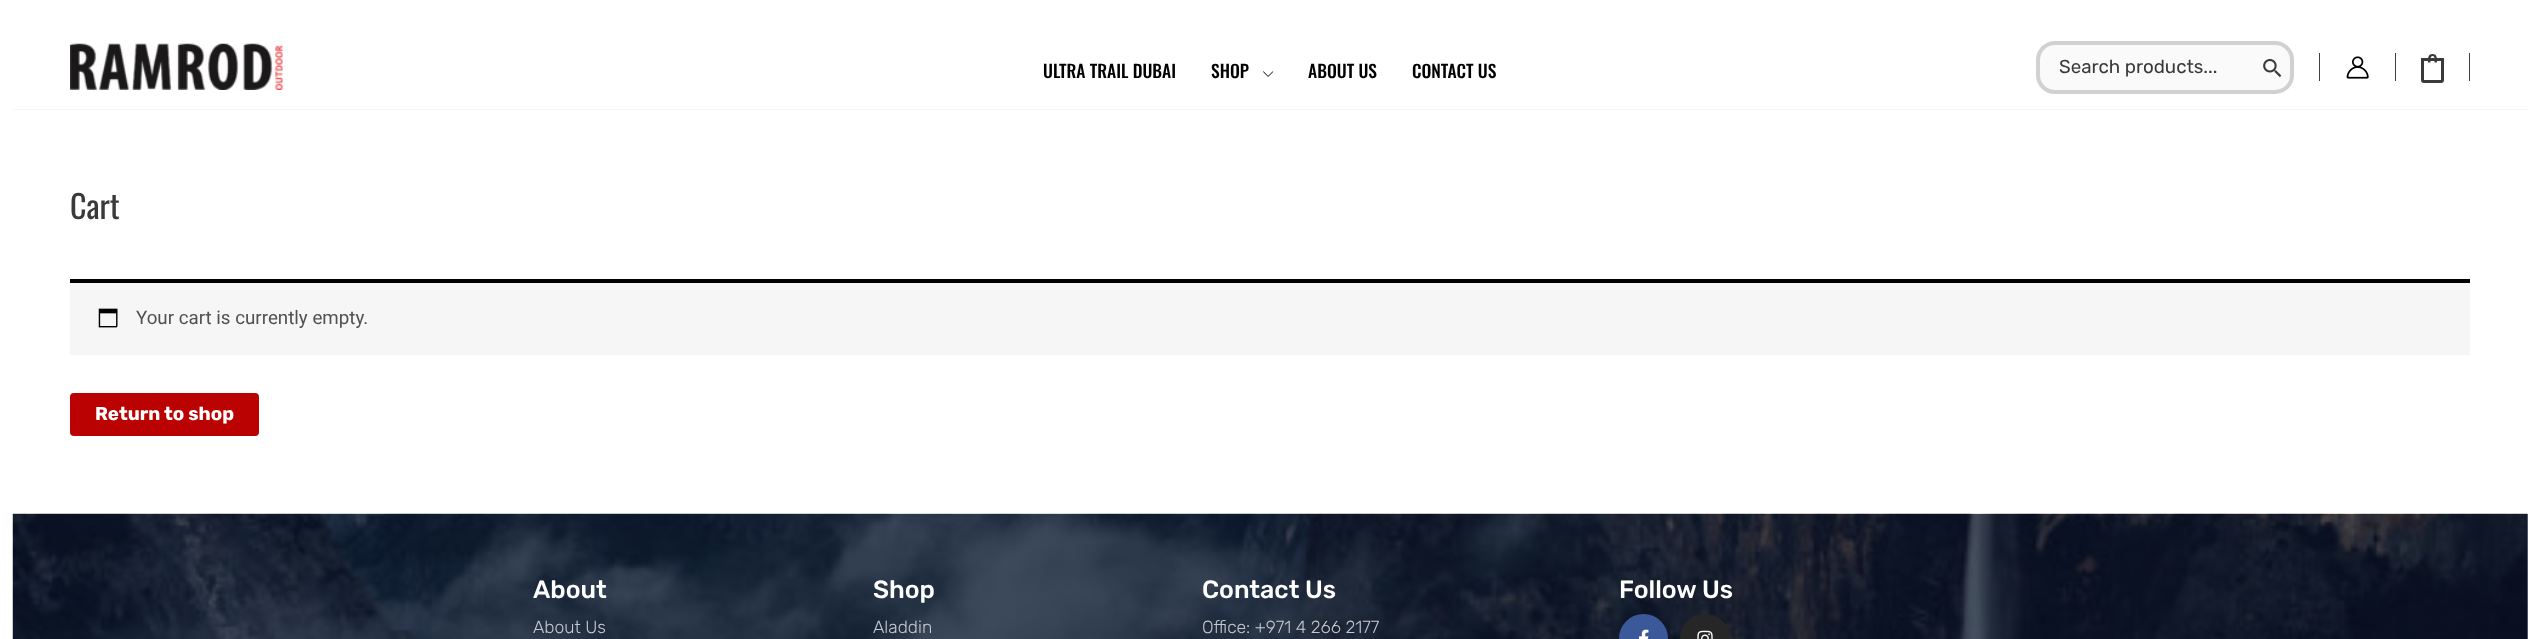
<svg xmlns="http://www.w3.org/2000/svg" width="2539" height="639">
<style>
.a{font:500 17.5px Oswald;fill:#000}
.b{font:18.75px Rubik;fill:#3a3a3a}
.c{font:32px Oswald;fill:#3a3a3a}
.d{font:18.75px Roboto;fill:#515151}
.e{font:bold 18.75px Rubik;fill:#fff}
.f{font:500 25px Rubik;fill:#fff}
.g{font:300 17.5px Rubik;fill:#c6c9ce}
</style>
<rect width="100%" height="100%" fill="#fff"/>
<path fill="#666d7c" d="M2527 514h1v125H2527z"/>
<path fill="#f5f5f5" d="M13 109h2515v1H13z"/>
<image href="1.png" x="70" y="43" width="213" height="47"/>
<image href="2.png" x="1263" y="71" width="11" height="6"/>
<rect fill="#fafafa" stroke="#d1d1d1" stroke-width="4" x="2038" y="43" width="254" height="49" rx="17"/>
<image href="3.png" x="2263" y="59" width="19" height="19"/>
<path fill="#424242" d="M2319 53h1v28H2319z"/>
<image href="4.png" x="2346" y="56" width="23" height="23"/>
<path fill="#424242" d="M2395 53h1v28H2395z"/>
<path fill="none" stroke="#3a3a3a" stroke-width="3" d="M2422.5 59.5h20v20.5c0 1-.5 1.5-1.5 1.5h-17c-1 0-1.5-.5-1.5-1.5z"/>
<path fill="#3a3a3a" fill-rule="evenodd" d="M2432.5 54c5 0 4.5 5 4.5 8.5h-9c0-3.5-.5-8.5 4.5-8.5zm0 2c3 0 2 5 2 6.5h-4c0-1.5-.5-6.5 2-6.5z"/>
<path fill="#424242" d="M2469 53h1v28H2469z"/>
<path fill="#f7f6f7" d="M70 283h2400v72H70z"/>
<path fill="#000" d="M70 279h2400v4H70z"/>
<image href="5.png" x="98" y="308" width="20" height="20"/>
<rect fill="#ba0202" x="70" y="393" width="189" height="43" rx="4"/>
<image href="6.png" x="12" y="513" width="2516" height="126"/>
<circle fill="#3b5998" cx="1643.5" cy="638.5" r="24.5"/>
<image href="7.png" x="1639" y="629" width="10" height="10"/>
<rect fill="#262626" x="1680" y="614" width="50" height="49" rx="24.5"/>
<image href="8.png" x="1697" y="630" width="16" height="9"/>
<text class="a" x="1043" y="78">ULTRA TRAIL DUBAI</text>
<text class="a" x="1211" y="78">SHOP</text>
<text class="a" x="1308" y="78">ABOUT US</text>
<text class="a" x="1412" y="78">CONTACT US</text>
<text class="b" x="2059" y="73">Search products...</text>
<text class="c" x="70" y="219">Cart</text>
<text class="d" x="136" y="324">Your cart is currently empty.</text>
<text class="e" x="95" y="420">Return to shop</text>
<text class="f" x="533" y="598">About</text>
<text class="g" x="533" y="633">About Us</text>
<text class="f" x="873" y="598">Shop</text>
<text class="g" x="873" y="633">Aladdin</text>
<text class="f" x="1202" y="598">Contact Us</text>
<text class="g" x="1202" y="633">Office: +971 4 266 2177</text>
<text class="f" x="1619" y="598">Follow Us</text>
</svg>
